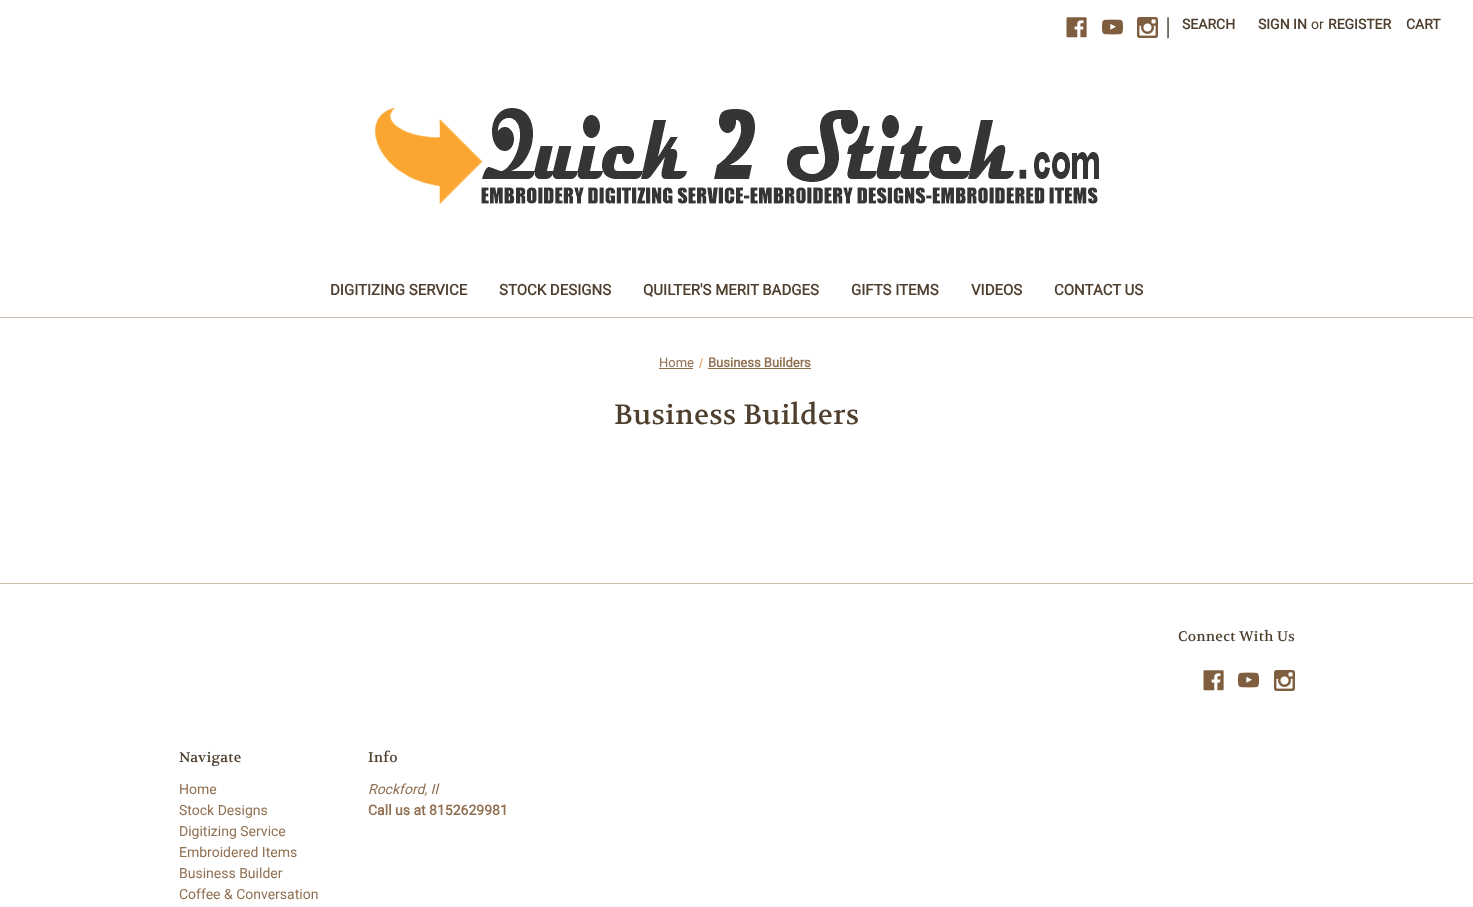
<svg xmlns="http://www.w3.org/2000/svg" width="1473" height="907">
<style>
.a{font:25px Roboto;fill:#74685c}
.b{font:bold 14px Roboto;fill:#4f3f2f}
.c{font:14px Roboto;fill:#4f3f2f}
.d{font:bold 15px Roboto;fill:#4f3f2f}
.e{font:13px Roboto;fill:#917052}
.f{font:bold 13px Roboto;fill:#917052}
.g{font:28px Volkhov;letter-spacing:0.25px;fill:#4f3f2f}
.h{font:14px Volkhov;letter-spacing:0.25px;fill:#4f3f2f}
.i{font:14px Roboto;fill:#917052}
.j{font:italic 14px Roboto;fill:#917052}
.k{font:bold 14px Roboto;fill:#917052}
</style>
<rect width="100%" height="100%" fill="#fff"/>
<path fill="#ccbdae" d="M0 317h1473v1H0z"/>
<image href="1.png" x="1066" y="17" width="21" height="21"/>
<image href="2.png" x="1102" y="19" width="21" height="16"/>
<image href="3.png" x="1137" y="17" width="21" height="21"/>
<image href="4.png" x="375" y="108" width="724" height="96"/>
<path fill="#917052" d="M659 368h34v1H659z"/>
<path fill="#e6a15c" d="M702 358l1 .5l-3 10l-1-.5z"/>
<path fill="#917052" d="M708 368h103v1H708z"/>
<path fill="#ccbdae" d="M0 583h1473v1H0z"/>
<image href="1.png" x="1203" y="670" width="21" height="21"/>
<image href="2.png" x="1238" y="672" width="21" height="16"/>
<image href="3.png" x="1274" y="670" width="21" height="21"/>
<text class="a" x="1165" y="35">|</text>
<text class="b" x="1182" y="29">SEARCH</text>
<text class="b" x="1258" y="29">SIGN IN</text>
<text class="c" x="1311" y="29">or</text>
<text class="b" x="1328" y="29">REGISTER</text>
<text class="b" x="1406" y="29">CART</text>
<text class="d" x="330" y="295">DIGITIZING SERVICE</text>
<text class="d" x="499" y="295">STOCK DESIGNS</text>
<text class="d" x="643" y="295">QUILTER'S MERIT BADGES</text>
<text class="d" x="851" y="295">GIFTS ITEMS</text>
<text class="d" x="971" y="295">VIDEOS</text>
<text class="d" x="1054" y="295">CONTACT US</text>
<text class="e" x="659" y="367">Home</text>
<text class="f" x="708" y="367">Business Builders</text>
<text class="g" x="614" y="424">Business Builders</text>
<text class="h" x="1178" y="641">Connect With Us</text>
<text class="h" x="179" y="762">Navigate</text>
<text class="i" x="179" y="794">Home</text>
<text class="i" x="179" y="815">Stock Designs</text>
<text class="i" x="179" y="836">Digitizing Service</text>
<text class="i" x="179" y="857">Embroidered Items</text>
<text class="i" x="179" y="878">Business Builder</text>
<text class="i" x="179" y="899">Coffee &amp; Conversation</text>
<text class="h" x="368" y="762">Info</text>
<text class="j" x="368" y="794">Rockford, Il</text>
<text class="k" x="368" y="815">Call us at 8152629981</text>
</svg>
